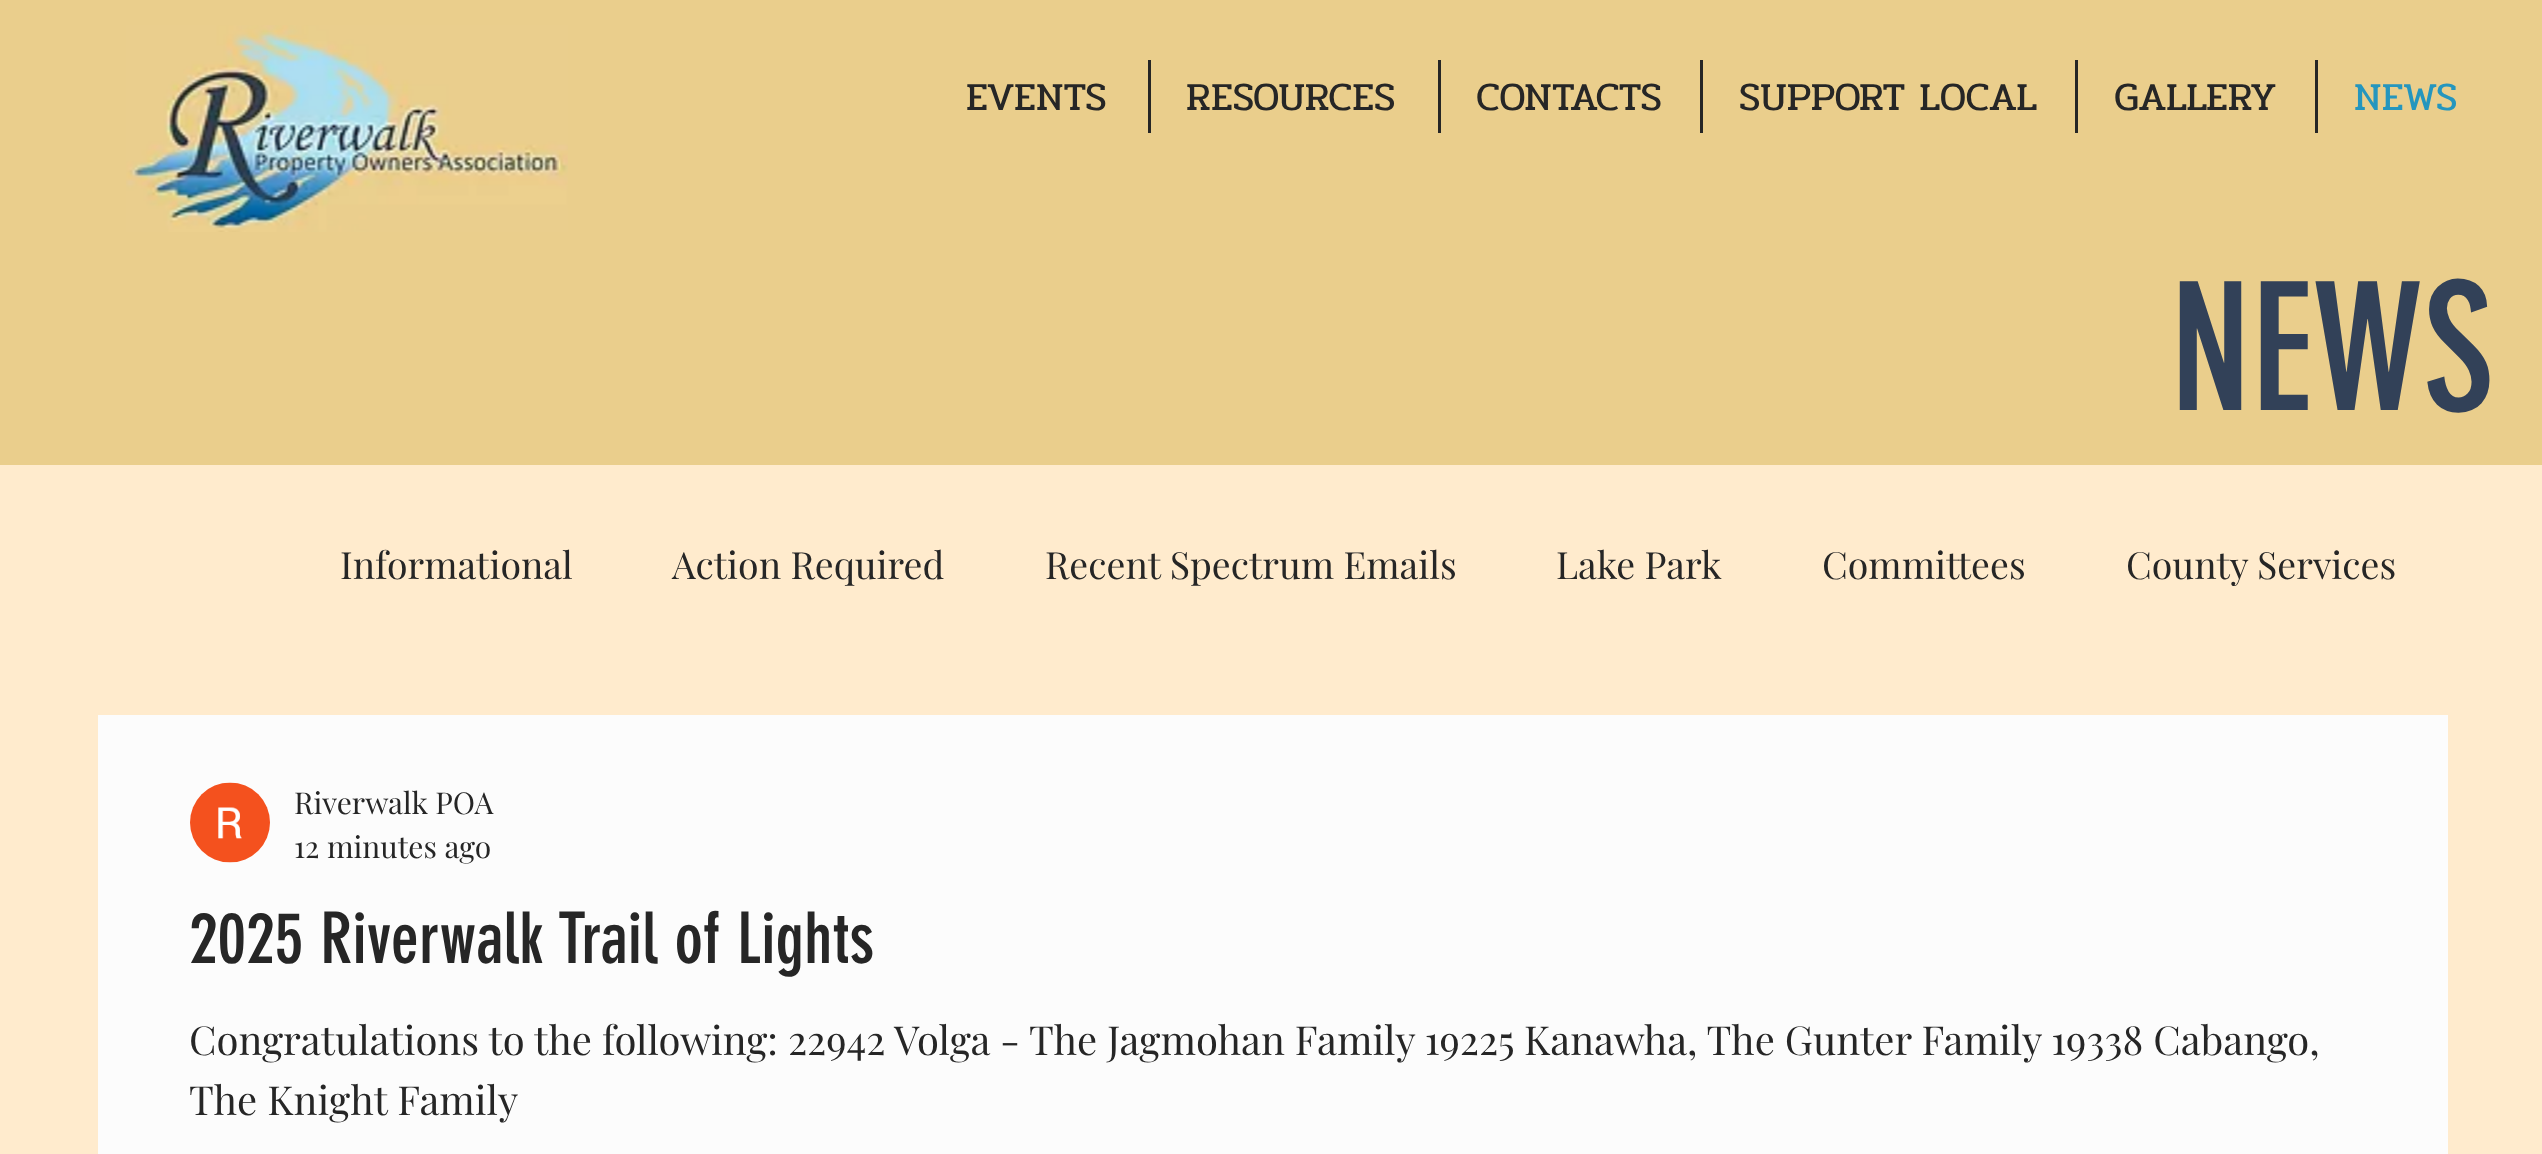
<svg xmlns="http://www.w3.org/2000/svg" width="2542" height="1154">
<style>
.a{font:40px Pridi;fill:#262626}
.b{font:40px Pridi;fill:#2596be}
.c{font:175px 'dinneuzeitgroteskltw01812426';fill:#324158}
.d{font:37.5px Playfair Display;fill:#262626}
.e{font:30px Playfair Display;fill:#262626}
.f{font:70px 'dinneuzeitgroteskltw01812426';fill:#262626}
.g{font:40px Playfair Display;fill:#262626}
</style>
<rect width="100%" height="100%" fill="#eace8c"/>
<image href="1.png" x="126" y="25" width="442" height="207"/>
<path fill="#262626" d="M1148 60h3v73H1148z"/>
<path fill="#262626" d="M1438 60h3v73H1438z"/>
<path fill="#262626" d="M1700 60h3v73H1700z"/>
<path fill="#262626" d="M2075 60h3v73H2075z"/>
<path fill="#262626" d="M2315 60h3v73H2315z"/>
<path fill="#ffebcd" d="M0 465h2542v689H0z"/>
<path fill="none" stroke="#fcfcfc" stroke-width="3" d="M99.5 716.5h2347v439H99.5z"/>
<path fill="#fcfcfc" d="M101 718h2344v436H101z"/>
<image href="2.png" x="190" y="782" width="80" height="81"/>
<text class="a" x="966" y="110">EVENTS</text>
<text class="a" x="1186" y="110">RESOURCES</text>
<text class="a" x="1476" y="110">CONTACTS</text>
<text class="a" x="1739" y="110">SUPPORT LOCAL</text>
<text class="a" x="2114" y="110">GALLERY</text>
<text class="b" x="2354" y="110">NEWS</text>
<text class="c" x="2170" y="410">NEWS</text>
<text class="d" x="340" y="579">Informational</text>
<text class="d" x="672" y="579">Action Required</text>
<text class="d" x="1045" y="579">Recent Spectrum Emails</text>
<text class="d" x="1556" y="579">Lake Park</text>
<text class="d" x="1822" y="579">Committees</text>
<text class="d" x="2126" y="579">County Services</text>
<text class="e" x="294" y="814">Riverwalk POA</text>
<text class="e" x="294" y="858">12 minutes ago</text>
<text class="f" x="189" y="963">2025 Riverwalk Trail of Lights</text>
<text class="g" x="189" y="1055">Congratulations to the following: 22942 Volga - The Jagmohan Family 19225 Kanawha, The Gunter Family 19338 Cabango,</text>
<text class="g" x="189" y="1115">The Knight Family</text>
</svg>
